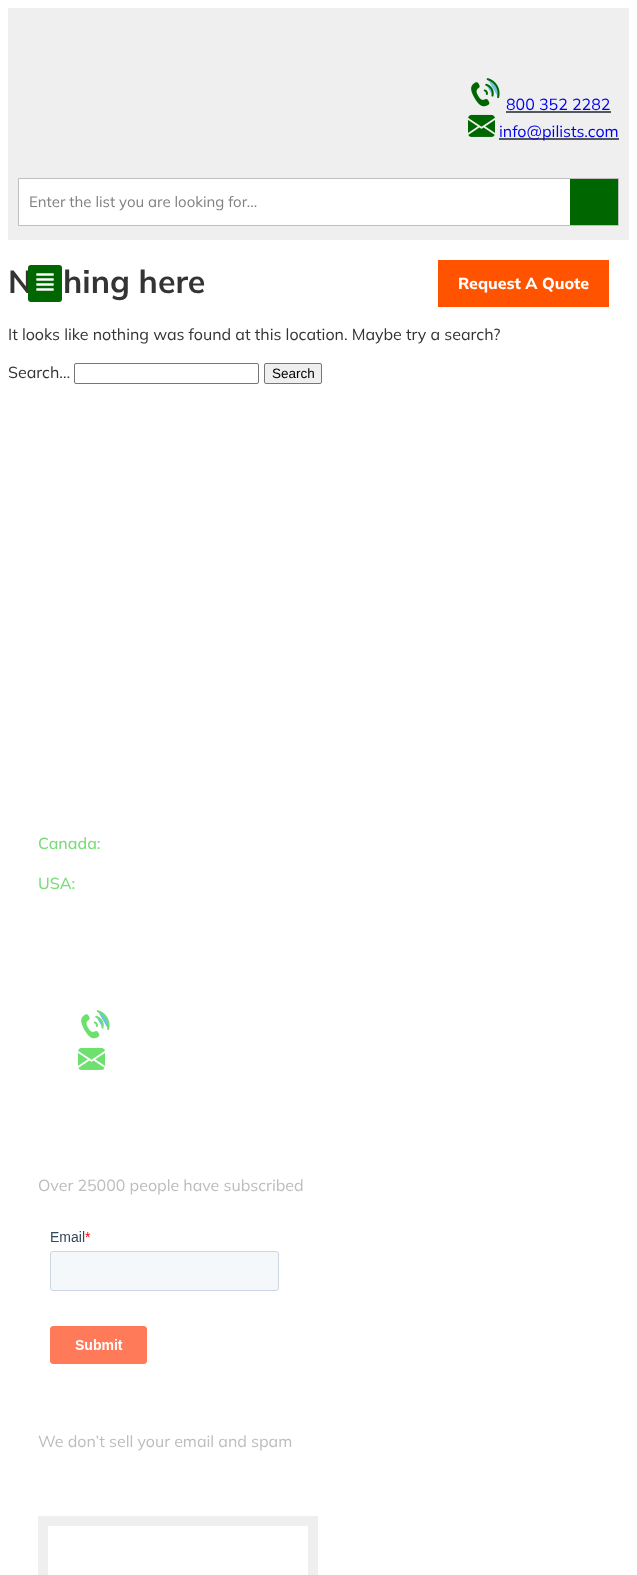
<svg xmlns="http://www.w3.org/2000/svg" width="637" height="1575">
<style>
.a{font:16px Mulish;fill:#00e}
.b{font:15px Mulish;fill:#808080}
.c{font:800 16px Mulish;fill:#fff}
.d{font:bold 32px Mulish;fill:#343434}
.e{font:16px Mulish;fill:#343434}
.f{font:13.5px Liberation Sans;fill:#000}
.g{font:500 16px Mulish;fill:#7add7a}
.h{font:16px Mulish;fill:#bdbdbd}
</style>
<rect width="100%" height="100%" fill="#fff"/>
<path fill="#efefef" d="M8 8h621v232H8z"/>
<image href="1.png" x="471" y="78" width="29" height="29"/>
<path fill="#54595f" d="M506 111h105v2H506z"/>
<image href="2.png" x="468" y="114" width="27" height="23"/>
<path fill="#54595f" d="M499 138h120v2H499z"/>
<path fill="none" stroke="#bfbfbf" d="M18.5 178.5h600v47H18.5z"/>
<path fill="#fff" d="M19 179h551v46H19z"/>
<path fill="#060" d="M570 179h48v46H570z"/>
<path fill="#ff5300" d="M438 260h171v47H438z"/>
<rect fill="none" stroke="#767676" x="74.5" y="363.5" width="184" height="20" rx="1.5"/>
<rect fill="#efefef" stroke="#767676" x="264.5" y="363.5" width="57" height="20" rx="1.5"/>
<image href="4.png" x="81" y="1010" width="29" height="29"/>
<image href="5.png" x="78" y="1047" width="27" height="23"/>
<image href="6.png" x="50" y="1231" width="229" height="133"/>
<path fill="none" stroke="#efefef" stroke-width="10" d="M43 1521h270v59H43z"/>
<text class="a" x="506" y="110">800 352 2282</text>
<text class="a" x="499" y="137">info@pilists.com</text>
<text class="b" x="29" y="207">Enter the list you are looking for...</text>
<text class="c" x="458" y="289">Request A Quote</text>
<text class="d" x="8" y="293">N</text>
<rect fill="#060" x="28" y="265" width="34" height="37" rx="3"/>
<image href="3.png" x="36" y="273" width="18" height="18"/>
<text class="d" x="63" y="293">hing here</text>
<text class="e" x="8" y="340">It looks like nothing was found at this location. Maybe try a search?</text>
<text class="e" x="8" y="378">Search…</text>
<text class="f" x="272" y="378">Search</text>
<text class="g" x="38" y="849">Canada:</text>
<text class="g" x="38" y="889">USA:</text>
<text class="h" x="38" y="1191">Over 25000 people have subscribed</text>
<text class="h" x="38" y="1447">We don’t sell your email and spam</text>
</svg>
